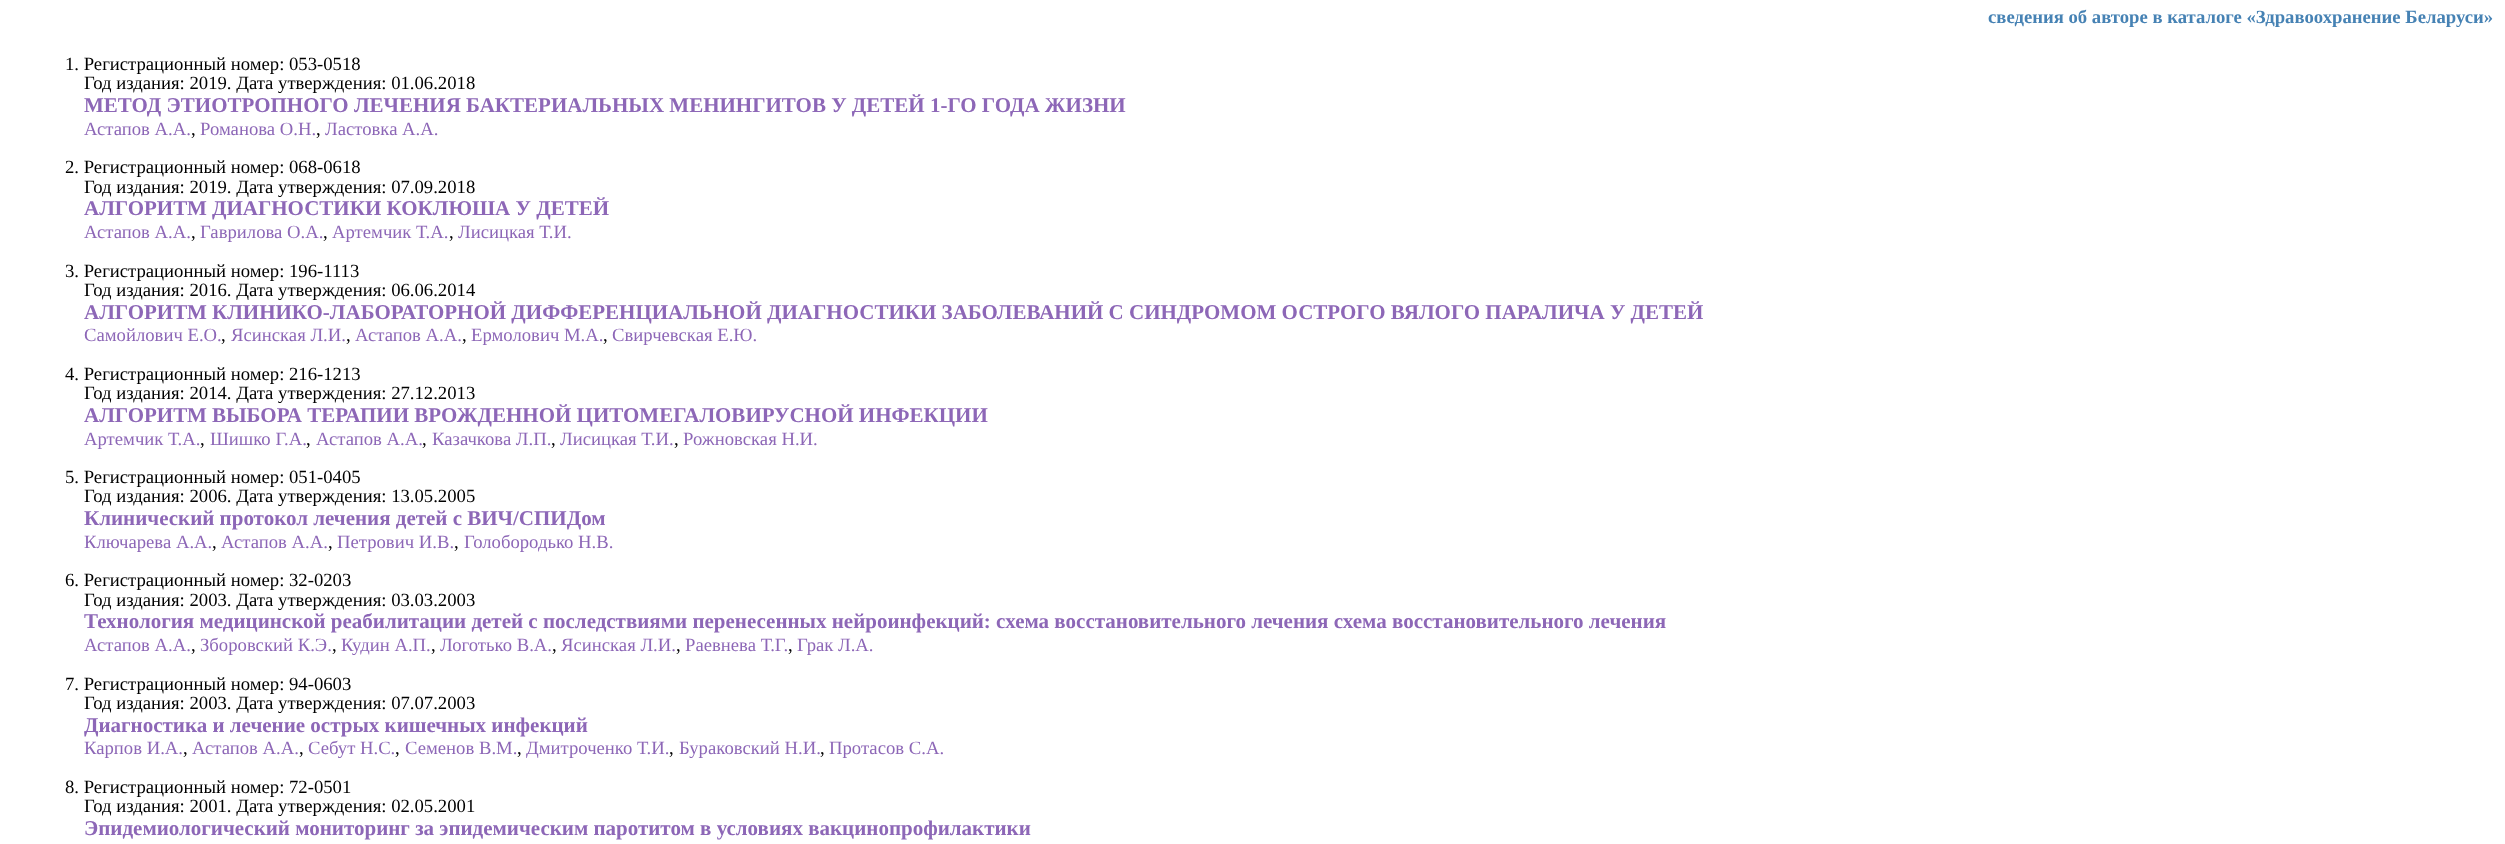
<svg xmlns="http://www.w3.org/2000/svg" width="2505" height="844">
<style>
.a{font:bold 18.7px Liberation Serif;fill:#4682b4}
.b{font:18.7px Liberation Serif;fill:#000}
.c{font:bold 21px Liberation Serif;fill:#8d67b7}
.d{font:18.7px Liberation Serif;fill:#8d67b7}
</style>
<rect width="100%" height="100%" fill="#fff"/>
<text class="a" x="1988" y="23">сведения об авторе в каталоге «Здравоохранение Беларуси»</text>
<text class="b" x="65" y="70">1. Регистрационный номер: 053-0518</text>
<text class="b" x="84" y="89">Год издания: 2019. Дата утверждения: 01.06.2018</text>
<text class="c" x="84" y="112">МЕТОД ЭТИОТРОПНОГО ЛЕЧЕНИЯ БАКТЕРИАЛЬНЫХ МЕНИНГИТОВ У ДЕТЕЙ 1-ГО ГОДА ЖИЗНИ</text>
<text class="d" x="84" y="135">Астапов А.А.</text>
<text class="b" x="191" y="135">,</text>
<text class="d" x="200" y="135">Романова О.Н.</text>
<text class="b" x="316" y="135">,</text>
<text class="d" x="325" y="135">Ластовка А.А.</text>
<text class="b" x="65" y="173">2. Регистрационный номер: 068-0618</text>
<text class="b" x="84" y="193">Год издания: 2019. Дата утверждения: 07.09.2018</text>
<text class="c" x="84" y="215">АЛГОРИТМ ДИАГНОСТИКИ КОКЛЮША У ДЕТЕЙ</text>
<text class="d" x="84" y="238">Астапов А.А.</text>
<text class="b" x="191" y="238">,</text>
<text class="d" x="200" y="238">Гаврилова О.А.</text>
<text class="b" x="323" y="238">,</text>
<text class="d" x="332" y="238">Артемчик Т.А.</text>
<text class="b" x="449" y="238">,</text>
<text class="d" x="458" y="238">Лисицкая Т.И.</text>
<text class="b" x="65" y="277">3. Регистрационный номер: 196-1113</text>
<text class="b" x="84" y="296">Год издания: 2016. Дата утверждения: 06.06.2014</text>
<text class="c" x="84" y="319">АЛГОРИТМ КЛИНИКО-ЛАБОРАТОРНОЙ ДИФФЕРЕНЦИАЛЬНОЙ ДИАГНОСТИКИ ЗАБОЛЕВАНИЙ С СИНДРОМОМ ОСТРОГО ВЯЛОГО ПАРАЛИЧА У ДЕТЕЙ</text>
<text class="d" x="84" y="341">Самойлович Е.О.</text>
<text class="b" x="221" y="341">,</text>
<text class="d" x="231" y="341">Ясинская Л.И.</text>
<text class="b" x="346" y="341">,</text>
<text class="d" x="355" y="341">Астапов А.А.</text>
<text class="b" x="462" y="341">,</text>
<text class="d" x="471" y="341">Ермолович М.А.</text>
<text class="b" x="603" y="341">,</text>
<text class="d" x="612" y="341">Свирчевская Е.Ю.</text>
<text class="b" x="65" y="380">4. Регистрационный номер: 216-1213</text>
<text class="b" x="84" y="399">Год издания: 2014. Дата утверждения: 27.12.2013</text>
<text class="c" x="84" y="422">АЛГОРИТМ ВЫБОРА ТЕРАПИИ ВРОЖДЕННОЙ ЦИТОМЕГАЛОВИРУСНОЙ ИНФЕКЦИИ</text>
<text class="d" x="84" y="445">Артемчик Т.А.</text>
<text class="b" x="200" y="445">,</text>
<text class="d" x="210" y="445">Шишко Г.А.</text>
<text class="b" x="306" y="445">,</text>
<text class="d" x="316" y="445">Астапов А.А.</text>
<text class="b" x="422" y="445">,</text>
<text class="d" x="432" y="445">Казачкова Л.П.</text>
<text class="b" x="551" y="445">,</text>
<text class="d" x="560" y="445">Лисицкая Т.И.</text>
<text class="b" x="674" y="445">,</text>
<text class="d" x="683" y="445">Рожновская Н.И.</text>
<text class="b" x="65" y="483">5. Регистрационный номер: 051-0405</text>
<text class="b" x="84" y="502">Год издания: 2006. Дата утверждения: 13.05.2005</text>
<text class="c" x="84" y="525">Клинический протокол лечения детей с ВИЧ/СПИДом</text>
<text class="d" x="84" y="548">Ключарева А.А.</text>
<text class="b" x="212" y="548">,</text>
<text class="d" x="221" y="548">Астапов А.А.</text>
<text class="b" x="328" y="548">,</text>
<text class="d" x="337" y="548">Петрович И.В.</text>
<text class="b" x="454" y="548">,</text>
<text class="d" x="464" y="548">Голобородько Н.В.</text>
<text class="b" x="65" y="586">6. Регистрационный номер: 32-0203</text>
<text class="b" x="84" y="606">Год издания: 2003. Дата утверждения: 03.03.2003</text>
<text class="c" x="84" y="628">Технология медицинской реабилитации детей с последствиями перенесенных нейроинфекций: схема восстановительного лечения схема восстановительного лечения</text>
<text class="d" x="84" y="651">Астапов А.А.</text>
<text class="b" x="191" y="651">,</text>
<text class="d" x="200" y="651">Зборовский К.Э.</text>
<text class="b" x="332" y="651">,</text>
<text class="d" x="341" y="651">Кудин А.П.</text>
<text class="b" x="431" y="651">,</text>
<text class="d" x="440" y="651">Логотько В.А.</text>
<text class="b" x="552" y="651">,</text>
<text class="d" x="561" y="651">Ясинская Л.И.</text>
<text class="b" x="676" y="651">,</text>
<text class="d" x="685" y="651">Раевнева Т.Г.</text>
<text class="b" x="788" y="651">,</text>
<text class="d" x="797" y="651">Грак Л.А.</text>
<text class="b" x="65" y="690">7. Регистрационный номер: 94-0603</text>
<text class="b" x="84" y="709">Год издания: 2003. Дата утверждения: 07.07.2003</text>
<text class="c" x="84" y="732">Диагностика и лечение острых кишечных инфекций</text>
<text class="d" x="84" y="754">Карпов И.А.</text>
<text class="b" x="183" y="754">,</text>
<text class="d" x="192" y="754">Астапов А.А.</text>
<text class="b" x="299" y="754">,</text>
<text class="d" x="308" y="754">Себут Н.С.</text>
<text class="b" x="395" y="754">,</text>
<text class="d" x="405" y="754">Семенов В.М.</text>
<text class="b" x="517" y="754">,</text>
<text class="d" x="526" y="754">Дмитроченко Т.И.</text>
<text class="b" x="669" y="754">,</text>
<text class="d" x="679" y="754">Бураковский Н.И.</text>
<text class="b" x="820" y="754">,</text>
<text class="d" x="829" y="754">Протасов С.А.</text>
<text class="b" x="65" y="793">8. Регистрационный номер: 72-0501</text>
<text class="b" x="84" y="812">Год издания: 2001. Дата утверждения: 02.05.2001</text>
<text class="c" x="84" y="835">Эпидемиологический мониторинг за эпидемическим паротитом в условиях вакцинопрофилактики</text>
</svg>
